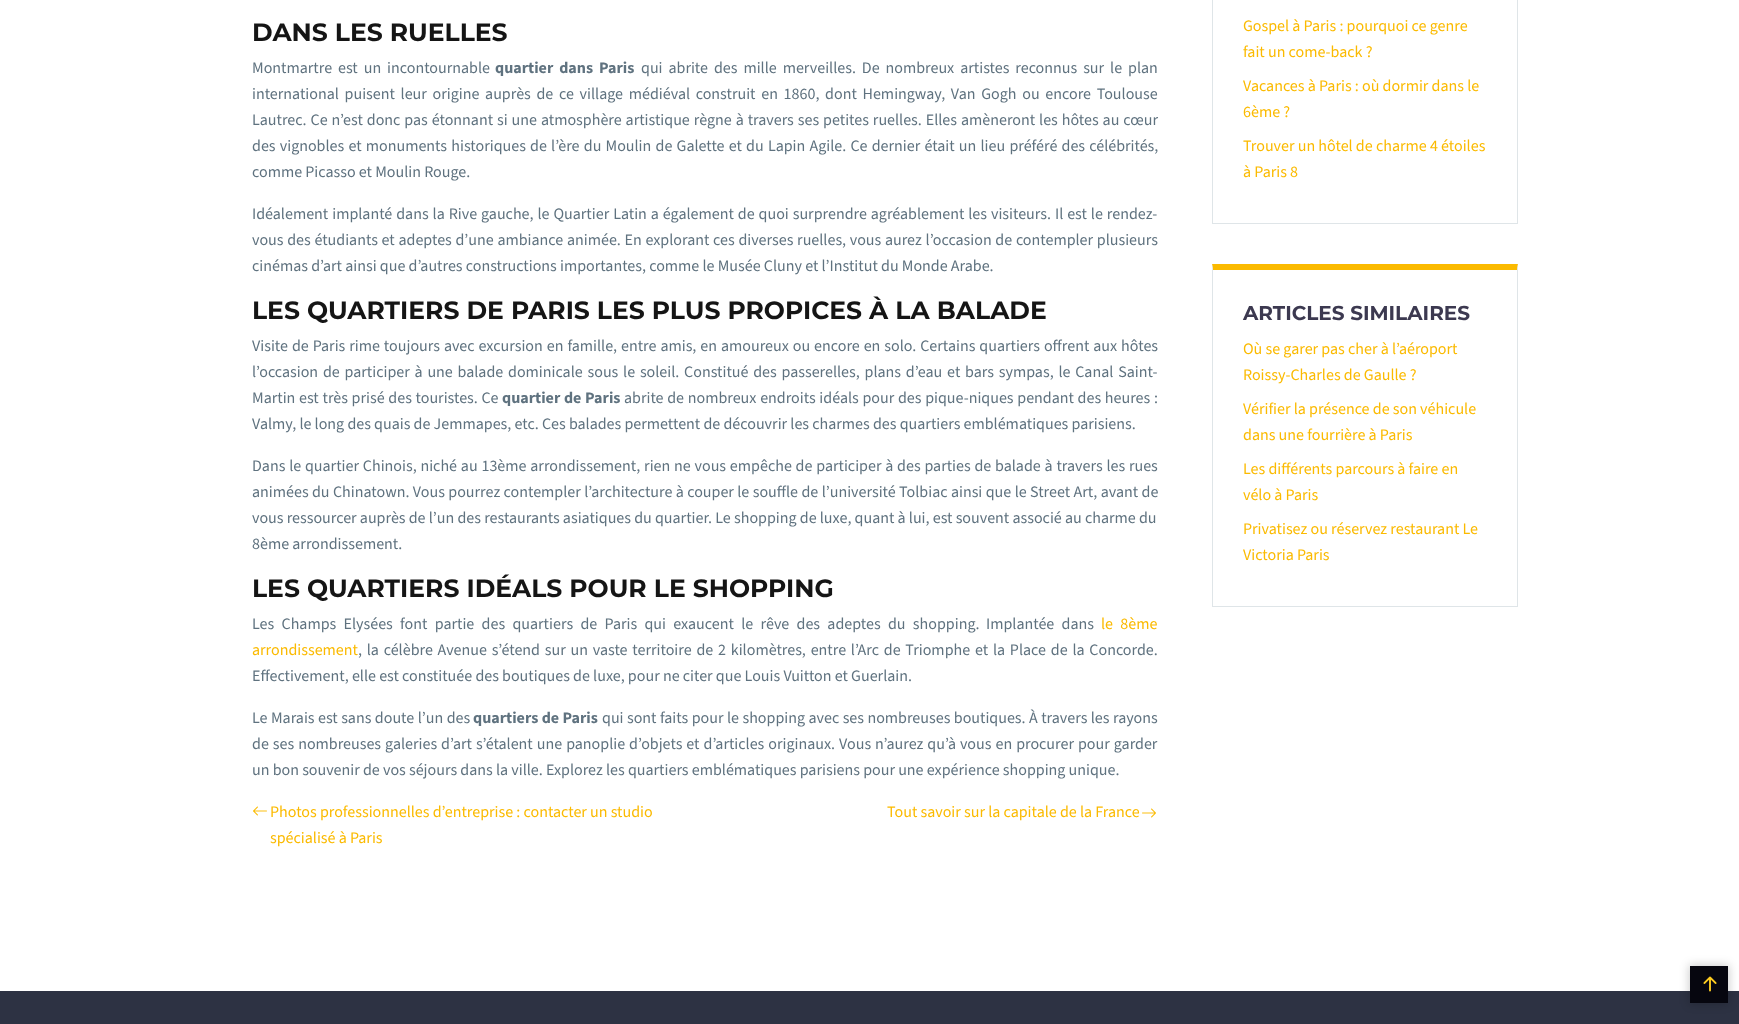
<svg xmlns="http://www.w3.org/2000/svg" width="1739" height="1024">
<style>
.a{font:bold 25px Montserrat;fill:#151515}
.b{font:16px 'Source Sans 3';fill:#5f727f}
.c{font:bold 16px 'Source Sans 3';fill:#5f727f}
.d{font:16px 'Source Sans 3';fill:#fbba00}
.e{font:bold 20px Montserrat;fill:#3c3950}
</style>
<rect width="100%" height="100%" fill="#fff"/>
<image href="1.png" x="253" y="806" width="14" height="10"/>
<image href="2.png" x="1142" y="808" width="14" height="10"/>
<path fill="#dfe5e8" d="M1518-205v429l-1-1v-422z"/>
<path fill="#dfe5e8" d="M1212 223h306v1H1212z"/>
<path fill="#dfe5e8" d="M1212 224v-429l1 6v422z"/>
<path fill="#fbba00" d="M1212 264h306l-1 6h-304z"/>
<path fill="#dfe5e8" d="M1518 264v343l-1-1v-336z"/>
<path fill="#dfe5e8" d="M1212 606h306v1H1212z"/>
<path fill="#dfe5e8" d="M1212 607v-343l1 6v336z"/>
<path fill="#2d3243" d="M0 991h1739v33H0z"/>
<path fill="#00000033" filter="blur(5px)" d="M1689 965h40v39H1689z"/>
<path fill="#06060f" d="M1690 966h38v37H1690z"/>
<image href="3.png" x="1703" y="976" width="14" height="16"/>
<text class="a" x="252" y="41">DANS LES RUELLES</text>
<text class="b" x="252" y="73" word-spacing="2.75">Montmartre est un incontournable</text>
<text class="c" x="495" y="73" word-spacing="2.75">quartier dans Paris</text>
<text class="b" x="641" y="73" word-spacing="2.75">qui abrite des mille merveilles. De nombreux artistes reconnus sur le plan</text>
<text class="b" x="252" y="99" word-spacing="2.5">international puisent leur origine auprès de ce village médiéval construit en 1860, dont Hemingway, Van Gogh ou encore Toulouse</text>
<text class="b" x="252" y="125" word-spacing="0.75">Lautrec. Ce n’est donc pas étonnant si une atmosphère artistique règne à travers ses petites ruelles. Elles amèneront les hôtes au cœur</text>
<text class="b" x="252" y="151" word-spacing="1">des vignobles et monuments historiques de l’ère du Moulin de Galette et du Lapin Agile. Ce dernier était un lieu préféré des célébrités,</text>
<text class="b" x="252" y="177">comme Picasso et Moulin Rouge.</text>
<text class="b" x="252" y="219" word-spacing="0.75">Idéalement implanté dans la Rive gauche, le Quartier Latin a également de quoi surprendre agréablement les visiteurs. Il est le rendez-</text>
<text class="b" x="252" y="245" word-spacing="0.5">vous des étudiants et adeptes d’une ambiance animée. En explorant ces diverses ruelles, vous aurez l’occasion de contempler plusieurs</text>
<text class="b" x="252" y="271">cinémas d’art ainsi que d’autres constructions importantes, comme le Musée Cluny et l’Institut du Monde Arabe.</text>
<text class="a" x="252" y="319">LES QUARTIERS DE PARIS LES PLUS PROPICES À LA BALADE</text>
<text class="b" x="252" y="351" word-spacing="0.75">Visite de Paris rime toujours avec excursion en famille, entre amis, en amoureux ou encore en solo. Certains quartiers offrent aux hôtes</text>
<text class="b" x="252" y="377" word-spacing="1.6">l’occasion de participer à une balade dominicale sous le soleil. Constitué des passerelles, plans d’eau et bars sympas, le Canal Saint-</text>
<text class="b" x="252" y="403" word-spacing="0.5">Martin est très prisé des touristes. Ce</text>
<text class="c" x="502" y="403" word-spacing="0.5">quartier de Paris</text>
<text class="b" x="624" y="403" word-spacing="0.5">abrite de nombreux endroits idéals pour des pique-niques pendant des heures :</text>
<text class="b" x="252" y="429">Valmy, le long des quais de Jemmapes, etc. Ces balades permettent de découvrir les charmes des quartiers emblématiques parisiens.</text>
<text class="b" x="252" y="471" word-spacing="0.6">Dans le quartier Chinois, niché au 13ème arrondissement, rien ne vous empêche de participer à des parties de balade à travers les rues</text>
<text class="b" x="252" y="497" word-spacing="0.2">animées du Chinatown. Vous pourrez contempler l’architecture à couper le souffle de l’université Tolbiac ainsi que le Street Art, avant de</text>
<text class="b" x="252" y="523">vous ressourcer auprès de l’un des restaurants asiatiques du quartier. Le shopping de luxe, quant à lui, est souvent associé au charme du</text>
<text class="b" x="252" y="549">8ème arrondissement.</text>
<text class="a" x="252" y="597">LES QUARTIERS IDÉALS POUR LE SHOPPING</text>
<text class="b" x="252" y="629" word-spacing="4.1">Les Champs Elysées font partie des quartiers de Paris qui exaucent le rêve des adeptes du shopping.</text>
<text class="b" x="986" y="629" word-spacing="4.1">Implantée dans</text>
<text class="d" x="1101" y="629" word-spacing="4.1">le 8ème</text>
<text class="d" x="252" y="655">arrondissement</text>
<text class="b" x="358" y="655" word-spacing="1.6">, la célèbre Avenue s’étend sur un vaste territoire de 2 kilomètres, entre l’Arc de Triomphe et la Place de la Concorde.</text>
<text class="b" x="252" y="681">Effectivement, elle est constituée des boutiques de luxe, pour ne citer que Louis Vuitton et Guerlain.</text>
<text class="b" x="252" y="723" word-spacing="0.25">Le Marais est sans doute l’un des</text>
<text class="c" x="473" y="723" word-spacing="0.25">quartiers de Paris</text>
<text class="b" x="602" y="723" word-spacing="0.25">qui sont faits pour le shopping avec ses nombreuses boutiques. À travers les rayons</text>
<text class="b" x="252" y="749" word-spacing="0.8">de ses nombreuses galeries d’art s’étalent une panoplie d’objets et d’articles originaux. Vous n’aurez qu’à vous en procurer pour garder</text>
<text class="b" x="252" y="775">un bon souvenir de vos séjours dans la ville. Explorez les quartiers emblématiques parisiens pour une expérience shopping unique.</text>
<text class="d" x="270" y="817">Photos professionnelles d’entreprise : contacter un studio</text>
<text class="d" x="270" y="843">spécialisé à Paris</text>
<text class="d" x="887" y="817">Tout savoir sur la capitale de la France</text>
<text class="d" x="1243" y="31">Gospel à Paris : pourquoi ce genre</text>
<text class="d" x="1243" y="57">fait un come-back ?</text>
<text class="d" x="1243" y="91">Vacances à Paris : où dormir dans le</text>
<text class="d" x="1243" y="117">6ème ?</text>
<text class="d" x="1243" y="151">Trouver un hôtel de charme 4 étoiles</text>
<text class="d" x="1243" y="177">à Paris 8</text>
<text class="e" x="1243" y="320">ARTICLES SIMILAIRES</text>
<text class="d" x="1243" y="354">Où se garer pas cher à l’aéroport</text>
<text class="d" x="1243" y="380">Roissy-Charles de Gaulle ?</text>
<text class="d" x="1243" y="414">Vérifier la présence de son véhicule</text>
<text class="d" x="1243" y="440">dans une fourrière à Paris</text>
<text class="d" x="1243" y="474">Les différents parcours à faire en</text>
<text class="d" x="1243" y="500">vélo à Paris</text>
<text class="d" x="1243" y="534">Privatisez ou réservez restaurant Le</text>
<text class="d" x="1243" y="560">Victoria Paris</text>
</svg>
